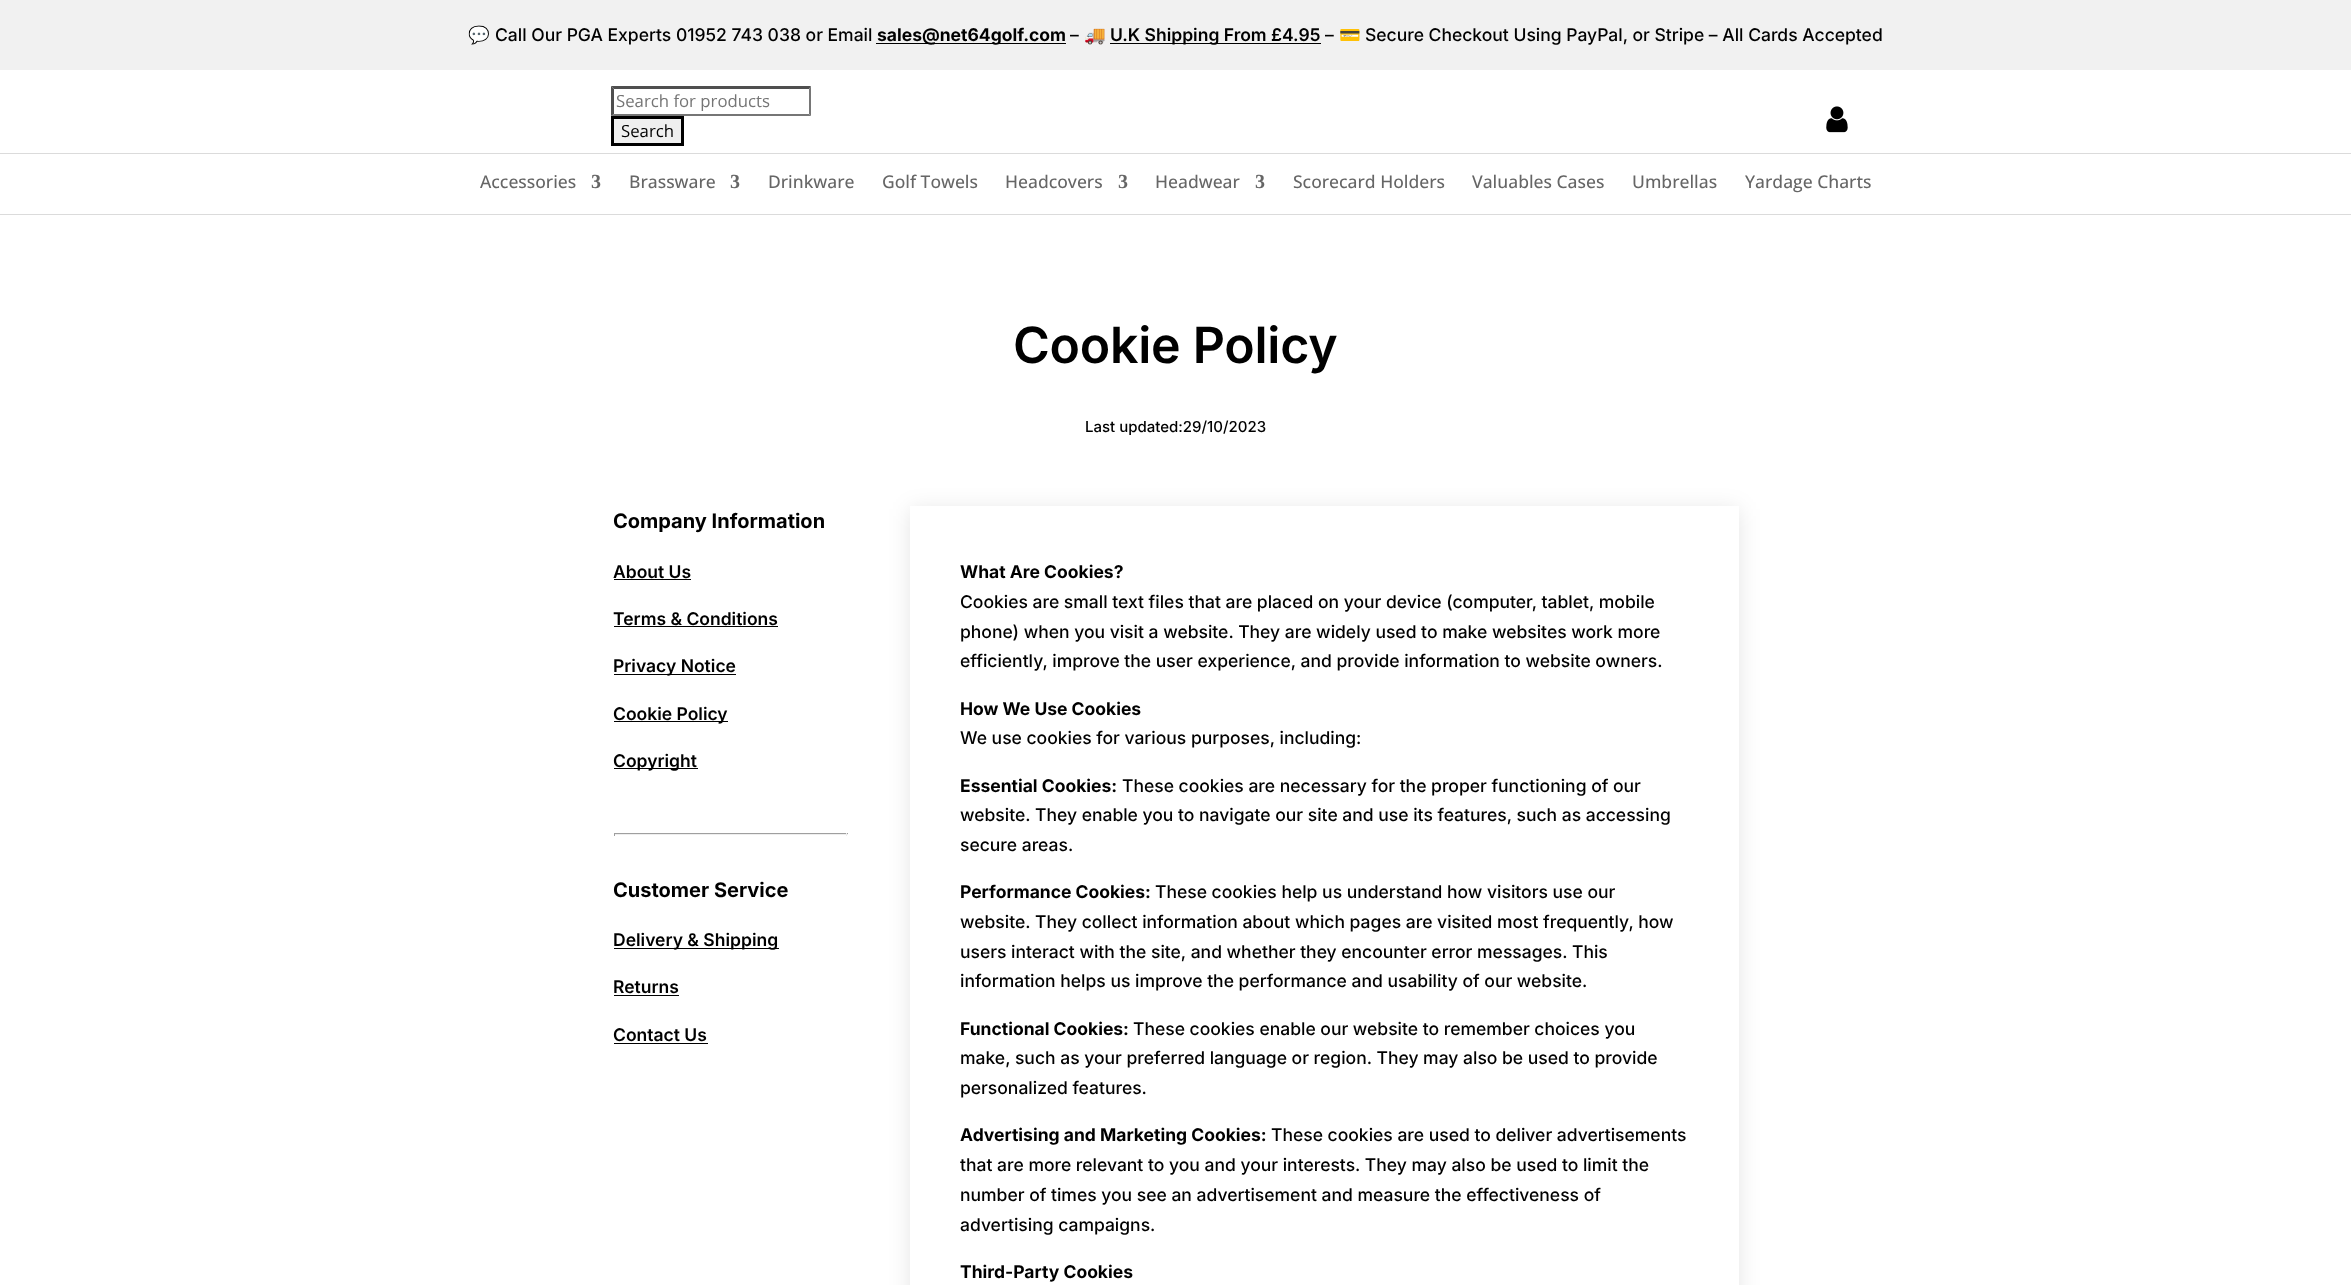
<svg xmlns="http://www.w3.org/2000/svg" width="2351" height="1285">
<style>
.a{font:17.5px Noto Color Emoji;fill:#000}
.b{font:500 17.5px Inter;fill:#000}
.c{font:bold 17.5px Inter;fill:#000}
.d{font:600 17.5px Inter;fill:#000}
.e{font:16.75px Open Sans;fill:#757575}
.f{font:16.75px Open Sans;fill:#000}
.g{font:500 17.5px Open Sans;fill:#666}
.h{font:bold 20px Liberation Serif;fill:#666}
.i{font:600 50px Inter;letter-spacing:-0.25px;fill:#000}
.j{font:500 15px Inter;fill:#000}
.k{font:bold 20px Inter;fill:#000}
</style>
<defs>
<clipPath id="clip1"><path d="M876 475h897v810h-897zm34 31h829v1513h-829z" clip-rule="evenodd"/></clipPath>
</defs>
<rect width="100%" height="100%" fill="#fff"/>
<path fill="#f1f1f1" d="M0 0h2351v70H0z"/>
<path fill="#000" d="M876 43h190v1H876z"/>
<path fill="#000" d="M1110 43h211v1H1110z"/>
<path fill="#dbdbdb" d="M0 153h2351v1H0z"/>
<path fill="#4f4f4f" d="M611 86h200l-2 3h-195z"/>
<path fill="#767676" d="M811 86v30l-2-2v-25z"/>
<path fill="#767676" d="M811 116h-200l3-2h195z"/>
<path fill="#4f4f4f" d="M611 116v-30l3 3v25z"/>
<path fill="#efefef" stroke="#000" stroke-width="3" d="M612.5 117.5h70v27H612.5z"/>
<image href="1.png" x="1826" y="106" width="22" height="27"/>
<path fill="#dbdbdb" d="M0 214h2351v1H0z"/>
<path fill="#000" d="M614 579h77v1H614z"/>
<path fill="#000" d="M614 626h164v1H614z"/>
<path fill="#000" d="M614 674h122v1H614z"/>
<path fill="#000" d="M614 721h114v1H614z"/>
<path fill="#000" d="M614 768h84v1H614z"/>
<path fill="#9f9f9f" d="M614 833h234v1H614z"/>
<path fill="#eee" d="M846 833h1v3H846z"/>
<path fill="#eee" d="M614 834h234v1H614z"/>
<path fill="#9f9f9f" d="M614 833h1v3H614z"/>
<path fill="#000" d="M614 948h165v1H614z"/>
<path fill="#000" d="M614 995h65v1H614z"/>
<path fill="#000" d="M614 1043h94v1H614z"/>
<g clip-path="url(#clip1)">
<path fill="#0000001a" filter="blur(11px)" d="M910 509h829v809H910z"/>
</g>
<text class="a" x="468" y="41">💬</text>
<text class="b" x="495" y="41">Call Our PGA Experts 01952 743 038 or Email</text>
<text class="c" x="877" y="41">sales@net64golf.com</text>
<text class="b" x="1070" y="41">–</text>
<text class="a" x="1084" y="41">🚚</text>
<text class="d" x="1110" y="41">U.K Shipping From £4.95</text>
<text class="b" x="1325" y="41">–</text>
<text class="a" x="1339" y="41">💳</text>
<text class="b" x="1365" y="41">Secure Checkout Using PayPal, or Stripe – All Cards Accepted</text>
<text class="e" x="616" y="107">Search for products</text>
<text class="f" x="621" y="137">Search</text>
<text class="g" x="480" y="188">Accessories</text>
<text class="h" x="591" y="188">3</text>
<text class="g" x="629" y="188">Brassware</text>
<text class="h" x="730" y="188">3</text>
<text class="g" x="768" y="188">Drinkware</text>
<text class="g" x="882" y="188">Golf Towels</text>
<text class="g" x="1005" y="188">Headcovers</text>
<text class="h" x="1118" y="188">3</text>
<text class="g" x="1155" y="188">Headwear</text>
<text class="h" x="1255" y="188">3</text>
<text class="g" x="1293" y="188">Scorecard Holders</text>
<text class="g" x="1472" y="188">Valuables Cases</text>
<text class="g" x="1632" y="188">Umbrellas</text>
<text class="g" x="1745" y="188">Yardage Charts</text>
<text class="i" x="1013" y="363">Cookie Policy</text>
<text class="j" x="1085" y="432">Last updated:29/10/2023</text>
<text class="k" x="613" y="528">Company Information</text>
<text class="d" x="613" y="578">About Us</text>
<text class="d" x="613" y="625">Terms &amp; Conditions</text>
<text class="d" x="613" y="672">Privacy Notice</text>
<text class="d" x="613" y="720">Cookie Policy</text>
<text class="d" x="613" y="767">Copyright</text>
<text class="k" x="613" y="897">Customer Service</text>
<text class="d" x="613" y="946">Delivery &amp; Shipping</text>
<text class="d" x="613" y="993">Returns</text>
<text class="d" x="613" y="1041">Contact Us</text>
<text class="c" x="960" y="578">What Are Cookies?</text>
<text class="b" x="960" y="608">Cookies are small text files that are placed on your device (computer, tablet, mobile</text>
<text class="b" x="960" y="638">phone) when you visit a website. They are widely used to make websites work more</text>
<text class="b" x="960" y="667">efficiently, improve the user experience, and provide information to website owners.</text>
<text class="c" x="960" y="715">How We Use Cookies</text>
<text class="b" x="960" y="744">We use cookies for various purposes, including:</text>
<text class="c" x="960" y="792">Essential Cookies:</text>
<text class="b" x="1122" y="792">These cookies are necessary for the proper functioning of our</text>
<text class="b" x="960" y="821">website. They enable you to navigate our site and use its features, such as accessing</text>
<text class="b" x="960" y="851">secure areas.</text>
<text class="c" x="960" y="898">Performance Cookies:</text>
<text class="b" x="1155" y="898">These cookies help us understand how visitors use our</text>
<text class="b" x="960" y="928">website. They collect information about which pages are visited most frequently, how</text>
<text class="b" x="960" y="958">users interact with the site, and whether they encounter error messages. This</text>
<text class="b" x="960" y="987">information helps us improve the performance and usability of our website.</text>
<text class="c" x="960" y="1035">Functional Cookies:</text>
<text class="b" x="1133" y="1035">These cookies enable our website to remember choices you</text>
<text class="b" x="960" y="1064">make, such as your preferred language or region. They may also be used to provide</text>
<text class="b" x="960" y="1094">personalized features.</text>
<text class="c" x="960" y="1141">Advertising and Marketing Cookies:</text>
<text class="b" x="1271" y="1141">These cookies are used to deliver advertisements</text>
<text class="b" x="960" y="1171">that are more relevant to you and your interests. They may also be used to limit the</text>
<text class="b" x="960" y="1201">number of times you see an advertisement and measure the effectiveness of</text>
<text class="b" x="960" y="1231">advertising campaigns.</text>
<text class="c" x="960" y="1278">Third-Party Cookies</text>
</svg>
